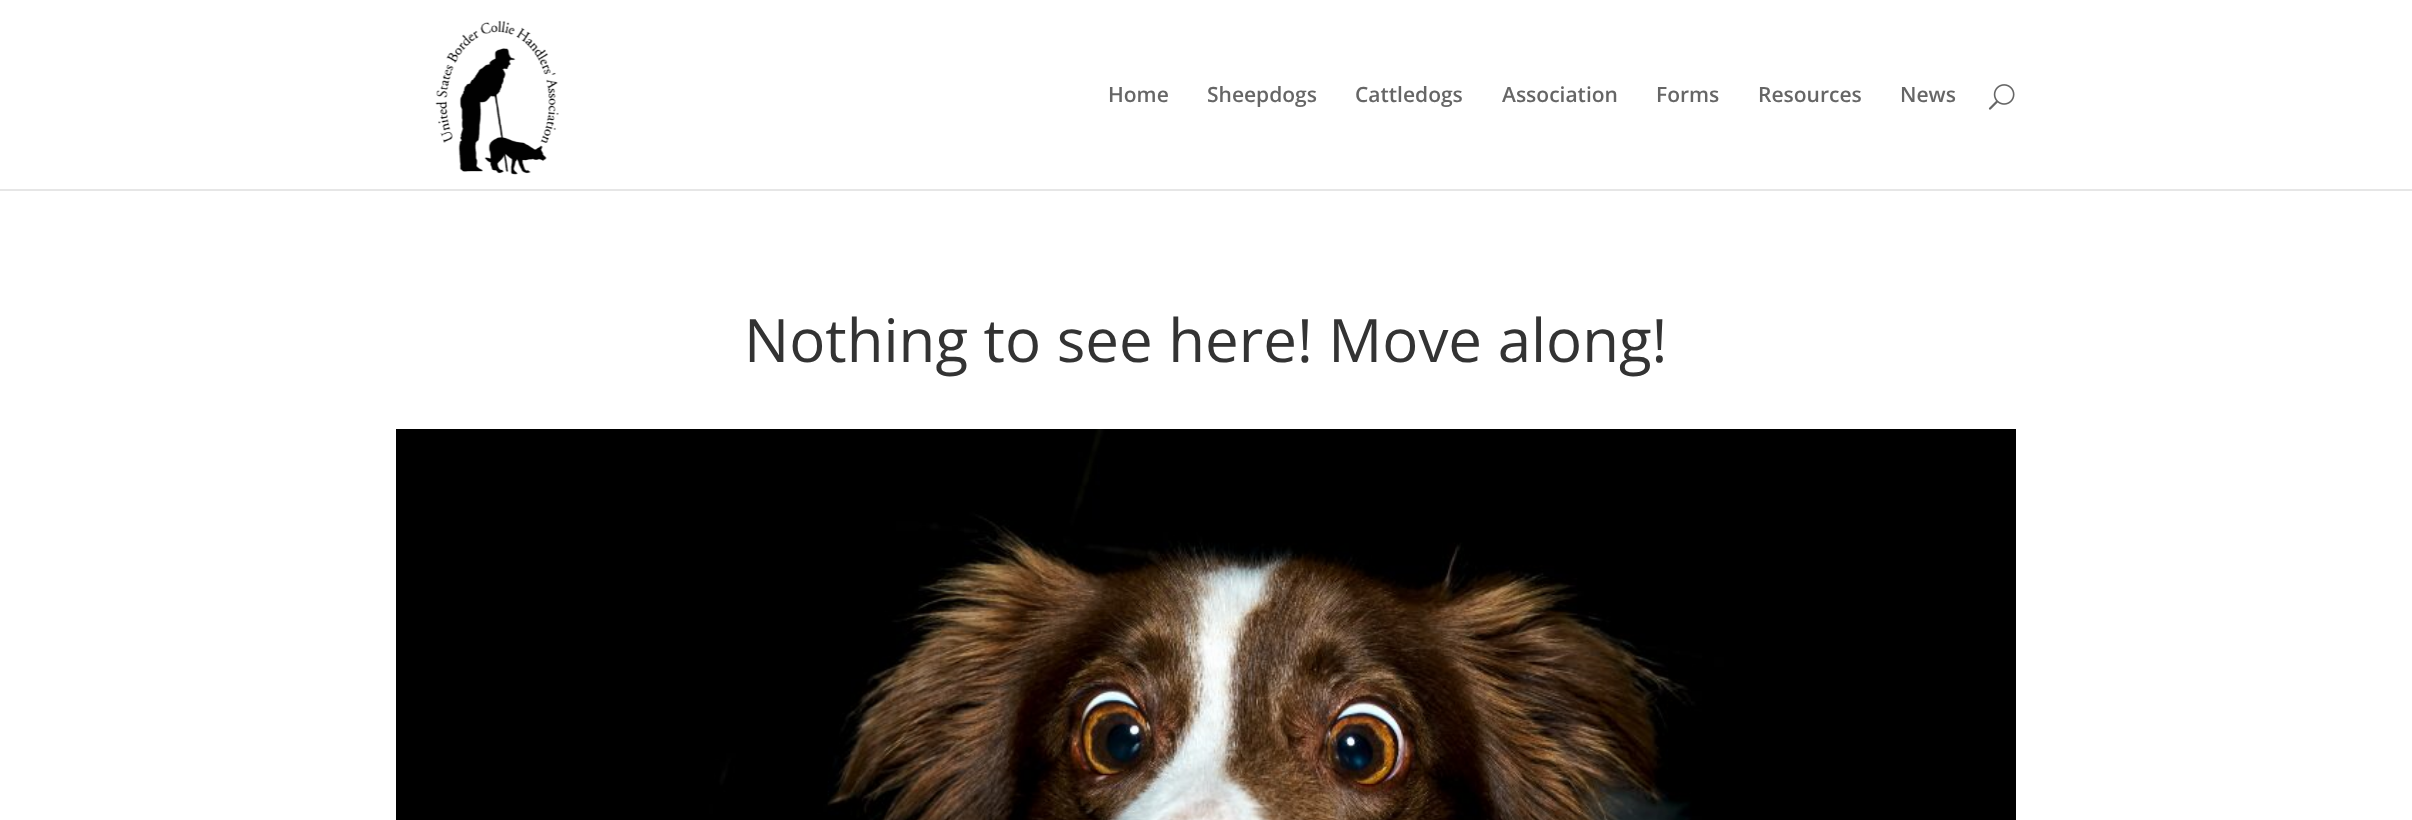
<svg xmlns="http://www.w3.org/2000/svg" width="2412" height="820">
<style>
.a{font:600 21px Open Sans;fill:#666}
.b{font:60px Open Sans;fill:#333}
</style>
<rect width="100%" height="100%" fill="#fff"/>
<path fill="#e6e6e6" d="M0 189h2412v2H0z"/>
<image href="1.png" x="435" y="20" width="124" height="155"/>
<image href="2.png" x="1988" y="84" width="27" height="26"/>
<image href="3.png" x="396" y="429" width="1620" height="391"/>
<text class="a" x="1108" y="102">Home</text>
<text class="a" x="1207" y="102">Sheepdogs</text>
<text class="a" x="1355" y="102">Cattledogs</text>
<text class="a" x="1502" y="102">Association</text>
<text class="a" x="1656" y="102">Forms</text>
<text class="a" x="1758" y="102">Resources</text>
<text class="a" x="1900" y="102">News</text>
<text class="b" x="744" y="362">Nothing to see here! Move along!</text>
</svg>
